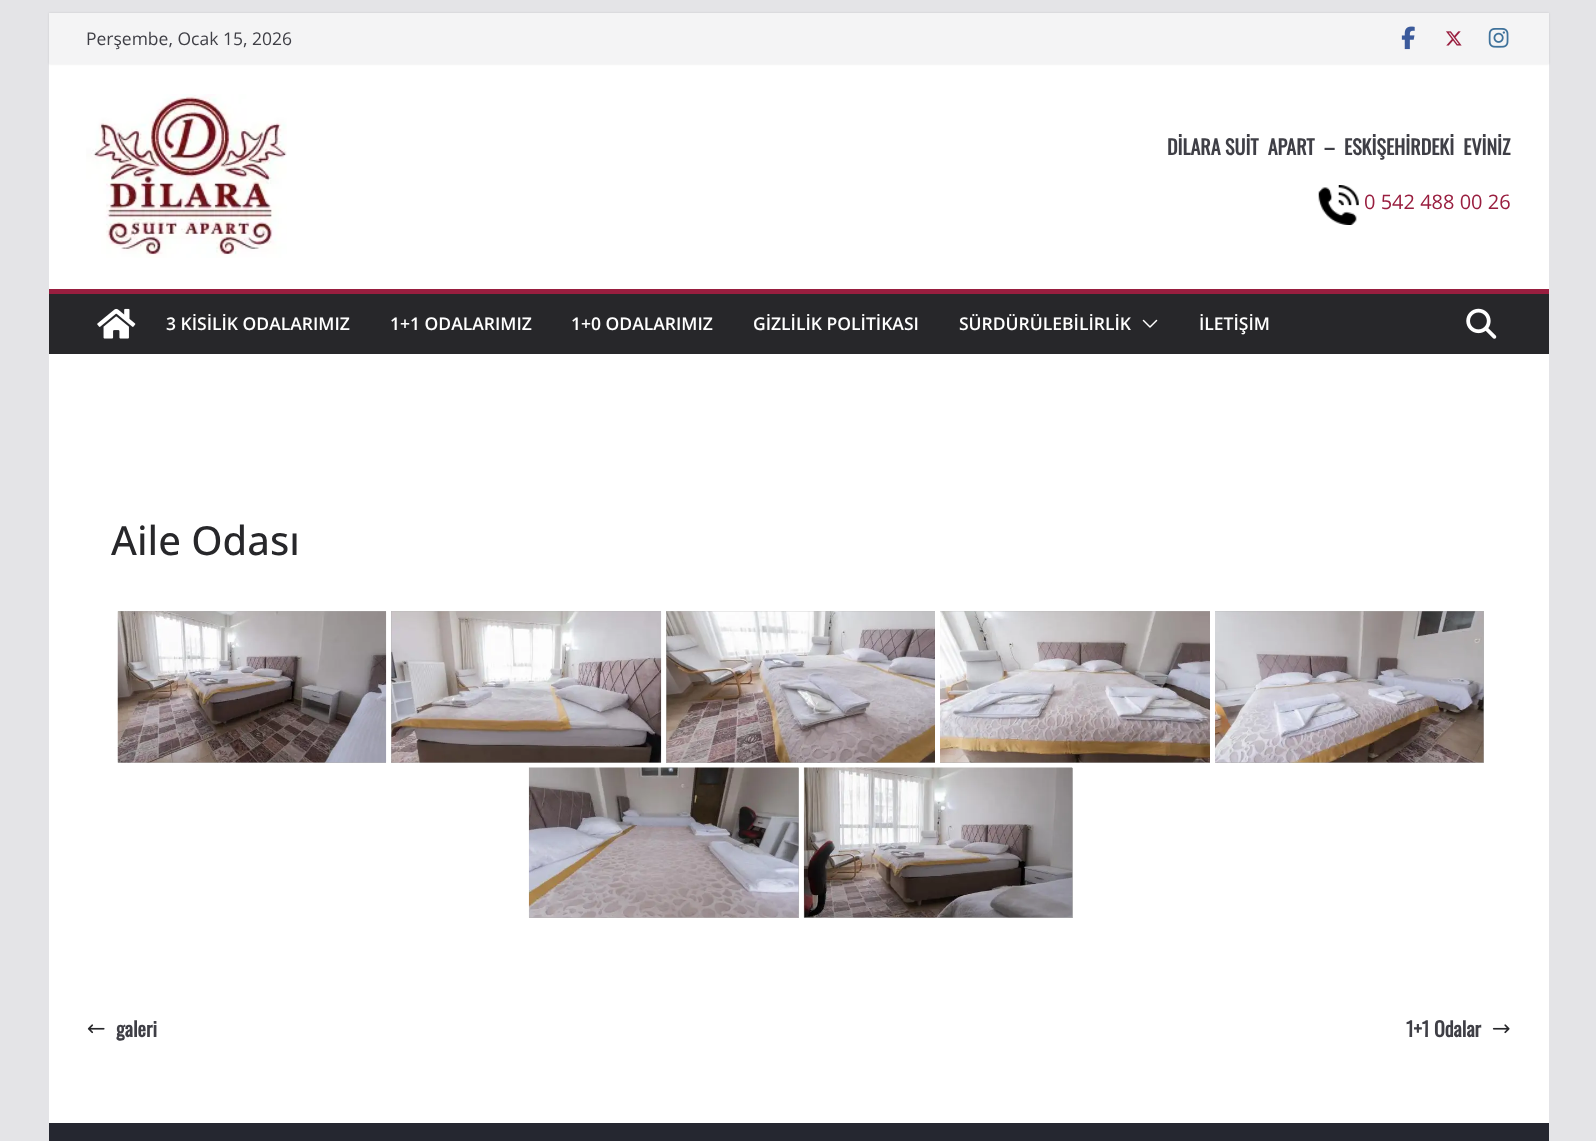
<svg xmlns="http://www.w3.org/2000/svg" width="1596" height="1141">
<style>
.a{font:17.5px Open Sans;fill:#3f3f46}
.b{font:bold 20px Oswald;fill:#3f3f46}
.c{font:20px Open Sans;fill:#991e3f}
.d{font:600 17.5px Open Sans;fill:#fff}
.e{font:500 40px Open Sans;fill:#27272a}
</style>
<rect width="100%" height="100%" fill="#e4e4e7"/>
<path fill="#fff" d="M49 64h1500v1059H49z"/>
<path fill="#0000001a" filter="blur(1px)" d="M49 13h1500v51H49z"/>
<path fill="#f4f4f5" d="M49 13h1500v51H49z"/>
<image href="1.png" x="1401" y="26" width="14" height="24"/>
<image href="2.png" x="1446" y="31" width="16" height="15"/>
<image href="3.png" x="1488" y="28" width="21" height="20"/>
<image href="4.png" x="86" y="94" width="201" height="164"/>
<image href="5.png" x="1318" y="185" width="41" height="40"/>
<path fill="#27272a" d="M49 294h1500v60H49z"/>
<path fill="#991e3f" d="M49 289h1500v5H49z"/>
<image href="6.png" x="97" y="308" width="39" height="31"/>
<image href="7.png" x="1142" y="319" width="16" height="9"/>
<image href="8.png" x="1466" y="308" width="31" height="31"/>
<path fill="#b3b3b3" d="M118 611h268v152H118z"/>
<image href="9.png" x="117" y="611" width="270" height="152"/>
<path fill="#b3b3b3" d="M391 611h270v152H391z"/>
<image href="10.png" x="391" y="611" width="271" height="152"/>
<path fill="#b3b3b3" d="M666 611h269v152H666z"/>
<image href="11.png" x="666" y="611" width="269" height="152"/>
<path fill="#b3b3b3" d="M940 611h270v152H940z"/>
<image href="12.png" x="940" y="611" width="270" height="152"/>
<path fill="#b3b3b3" d="M1215 611h269v152H1215z"/>
<image href="13.png" x="1215" y="611" width="269" height="152"/>
<path fill="#b3b3b3" d="M529 768h270v150H529z"/>
<image href="14.png" x="528" y="767" width="271" height="151"/>
<path fill="#b3b3b3" d="M804 768h269v150H804z"/>
<image href="15.png" x="803" y="767" width="270" height="151"/>
<image href="16.png" x="87" y="1024" width="18" height="10"/>
<image href="17.png" x="1492" y="1024" width="18" height="10"/>
<path fill="#252730" d="M49 1123h1500v18H49z"/>
<text class="a" x="86" y="45">Perşembe, Ocak 15, 2026</text>
<text class="b" xml:space="preserve" x="1167" y="155">DİLARA SUİT  APART  –  ESKİŞEHİRDEKİ  EVİNİZ</text>
<text class="c" x="1364" y="209">0 542 488 00 26</text>
<text class="d" x="166" y="330">3 KİSİLİK ODALARIMIZ</text>
<text class="d" x="390" y="330">1+1 ODALARIMIZ</text>
<text class="d" x="571" y="330">1+0 ODALARIMIZ</text>
<text class="d" x="753" y="330">GİZLİLİK POLİTİKASI</text>
<text class="d" x="959" y="330">SÜRDÜRÜLEBİLİRLİK</text>
<text class="d" x="1199" y="330">İLETİŞİM</text>
<text class="e" x="111" y="555">Aile Odası</text>
<text class="b" x="116" y="1037">galeri</text>
<text class="b" x="1406" y="1037">1+1 Odalar</text>
</svg>
